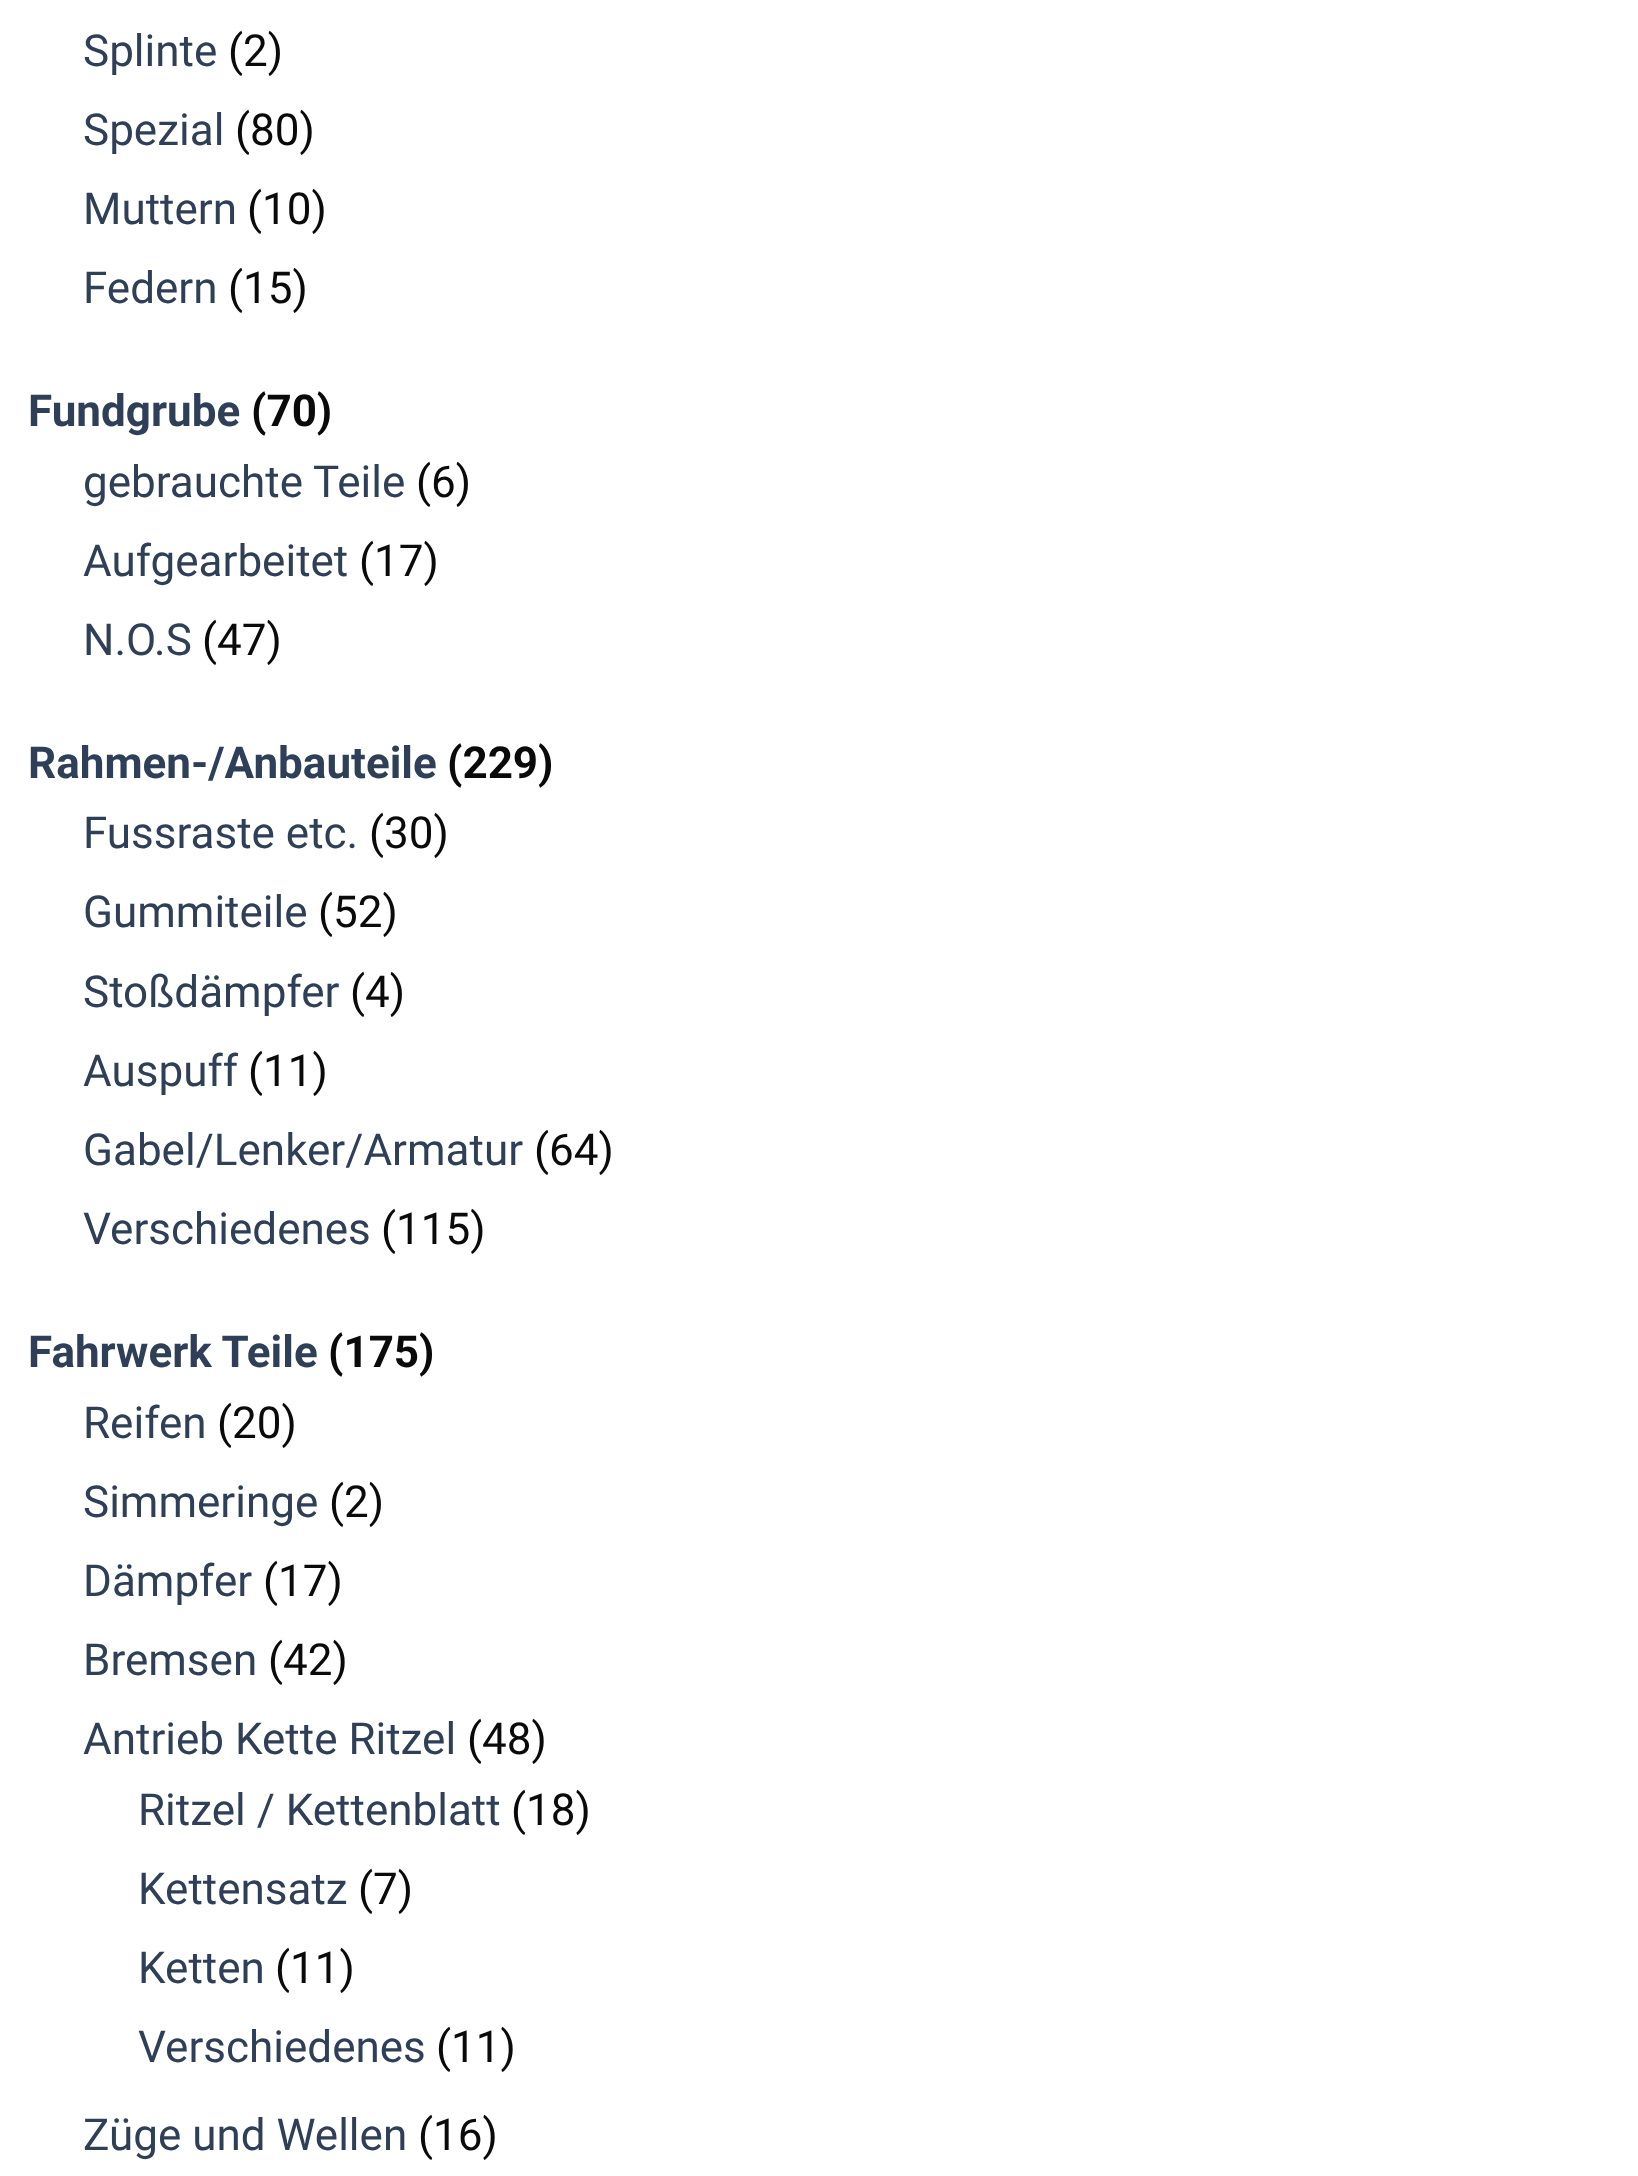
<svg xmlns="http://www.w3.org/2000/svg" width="1638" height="2176">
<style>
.a{font:44px Roboto;fill:#2f3f57}
.b{font:44px Roboto;fill:#0a0a0a}
.c{font:bold 44px Roboto;fill:#2f3f57}
.d{font:bold 44px Roboto;fill:#0a0a0a}
</style>
<rect width="100%" height="100%" fill="#fff"/>
<text class="a" x="83" y="66">Splinte</text>
<text class="b" x="228" y="66">(2)</text>
<text class="a" x="83" y="145">Spezial</text>
<text class="b" x="235" y="145">(80)</text>
<text class="a" x="83" y="224">Muttern</text>
<text class="b" x="247" y="224">(10)</text>
<text class="a" x="83" y="303">Federn</text>
<text class="b" x="228" y="303">(15)</text>
<text class="c" x="28" y="426">Fundgrube</text>
<text class="d" x="251" y="426">(70)</text>
<text class="a" x="83" y="497">gebrauchte Teile</text>
<text class="b" x="416" y="497">(6)</text>
<text class="a" x="83" y="576">Aufgearbeitet</text>
<text class="b" x="359" y="576">(17)</text>
<text class="a" x="83" y="655">N.O.S</text>
<text class="b" x="202" y="655">(47)</text>
<text class="c" x="28" y="778">Rahmen-/Anbauteile</text>
<text class="d" x="447" y="778">(229)</text>
<text class="a" x="83" y="848">Fussraste etc.</text>
<text class="b" x="369" y="848">(30)</text>
<text class="a" x="83" y="927">Gummiteile</text>
<text class="b" x="318" y="927">(52)</text>
<text class="a" x="83" y="1007">Stoßdämpfer</text>
<text class="b" x="350" y="1007">(4)</text>
<text class="a" x="83" y="1086">Auspuff</text>
<text class="b" x="248" y="1086">(11)</text>
<text class="a" x="83" y="1165">Gabel/Lenker/Armatur</text>
<text class="b" x="534" y="1165">(64)</text>
<text class="a" x="83" y="1244">Verschiedenes</text>
<text class="b" x="381" y="1244">(115)</text>
<text class="c" x="28" y="1367">Fahrwerk Teile</text>
<text class="d" x="328" y="1367">(175)</text>
<text class="a" x="83" y="1438">Reifen</text>
<text class="b" x="217" y="1438">(20)</text>
<text class="a" x="83" y="1517">Simmeringe</text>
<text class="b" x="329" y="1517">(2)</text>
<text class="a" x="83" y="1596">Dämpfer</text>
<text class="b" x="263" y="1596">(17)</text>
<text class="a" x="83" y="1675">Bremsen</text>
<text class="b" x="268" y="1675">(42)</text>
<text class="a" x="83" y="1754">Antrieb Kette Ritzel</text>
<text class="b" x="467" y="1754">(48)</text>
<text class="a" x="138" y="1825">Ritzel / Kettenblatt</text>
<text class="b" x="511" y="1825">(18)</text>
<text class="a" x="138" y="1904">Kettensatz</text>
<text class="b" x="358" y="1904">(7)</text>
<text class="a" x="138" y="1983">Ketten</text>
<text class="b" x="275" y="1983">(11)</text>
<text class="a" x="138" y="2062">Verschiedenes</text>
<text class="b" x="436" y="2062">(11)</text>
<text class="a" x="83" y="2150">Züge und Wellen</text>
<text class="b" x="418" y="2150">(16)</text>
</svg>
